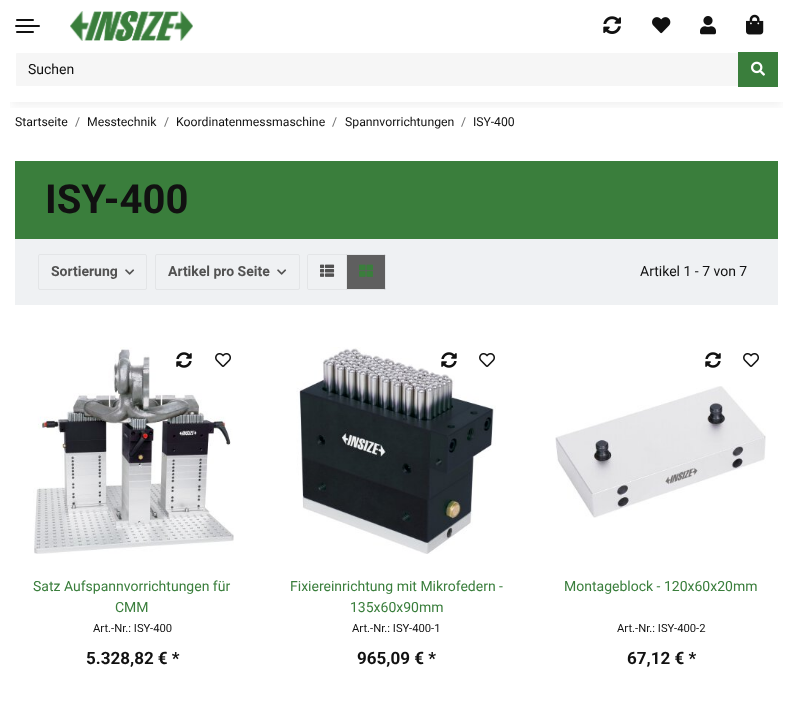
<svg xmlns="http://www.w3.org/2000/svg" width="793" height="702">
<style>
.a{font:14px Roboto;fill:#111}
.b{font:12.25px Roboto;fill:#111}
.c{font:12.25px Roboto;fill:#707070}
.d{font:bold 40px Roboto;fill:#111}
.e{font:bold 14px 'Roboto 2';fill:#525252}
.f{font:14px Roboto;fill:#3a7e3c}
.g{font:11.25px Roboto;fill:#111}
.h{font:bold 17px Roboto;fill:#111}
</style>
<defs>
<clipPath id="clip1"><path d="M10 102h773v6H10z"/></clipPath>
</defs>
<rect width="100%" height="100%" fill="#fff"/>
<g clip-path="url(#clip1)">
<path fill="#1111110f" filter="blur(4px)" d="M11 26h771v80H11z"/>
</g>
<rect fill="#111" x="15" y="25" width="25" height="2" rx="1"/>
<rect fill="#111" x="16" y="19" width="18" height="2" rx="1"/>
<rect fill="#111" x="16" y="31" width="18" height="2" rx="1"/>
<image href="1.png" x="70" y="11" width="123" height="30"/>
<image href="2.png" x="603" y="16" width="18" height="18"/>
<image href="3.png" x="652" y="17" width="19" height="17"/>
<image href="4.png" x="700" y="16" width="16" height="19"/>
<image href="5.png" x="746" y="14" width="18" height="21"/>
<path fill="#f6f6f6" d="M17 53h721v33h-721c-.5 0-1-.5-1-1v-31c0-.5 .5-1 1-1z"/>
<path fill="#3a7e3c" d="M738 52h40v35H738z"/>
<image href="6.png" x="751" y="61" width="14" height="15"/>
<path fill="#3a7e3c" d="M15 161h763v78H15z"/>
<path fill="#eff1f3" d="M15 239h763v66H15z"/>
<rect fill="none" stroke="#e3e5e7" x="38.5" y="254.5" width="108" height="35" rx="1.5"/>
<image href="7.png" x="125" y="269" width="10" height="6"/>
<rect fill="none" stroke="#e3e5e7" x="155.5" y="254.5" width="144" height="35" rx="1.5"/>
<image href="7.png" x="277" y="269" width="10" height="6"/>
<path fill="none" stroke="#e3e5e7" d="M309 254.5h37.5v35h-37.5c-1 0-1.5-.5-1.5-1.5v-32c0-1 .5-1.5 1.5-1.5z"/>
<image href="8.png" x="320" y="264" width="15" height="13"/>
<path fill="#5f5f5f" stroke="#e3e5e7" d="M346.5 254.5h37.5c1 0 1.5 .5 1.5 1.5v32c0 1-.5 1.5-1.5 1.5h-37.5z"/>
<image href="9.png" x="359" y="264" width="14" height="13"/>
<image href="10.png" x="33" y="347" width="201" height="207"/>
<image href="11.png" x="176" y="352" width="16" height="16"/>
<image href="12.png" x="215" y="353" width="16" height="14"/>
<image href="13.png" x="296" y="347" width="200" height="207"/>
<rect fill="#fff" x="433" y="346" width="31" height="28" rx="3"/>
<image href="11.png" x="441" y="352" width="16" height="16"/>
<image href="12.png" x="479" y="353" width="16" height="14"/>
<image href="11.png" x="705" y="352" width="16" height="16"/>
<image href="12.png" x="743" y="353" width="16" height="14"/>
<image href="14.png" x="555" y="386" width="211" height="132"/>
<text class="a" x="28" y="74">Suchen</text>
<text class="b" x="15" y="126">Startseite</text>
<text class="c" x="75" y="126">/</text>
<text class="b" x="87" y="126">Messtechnik</text>
<text class="c" x="164" y="126">/</text>
<text class="b" x="176" y="126">Koordinatenmessmaschine</text>
<text class="c" x="332" y="126">/</text>
<text class="b" x="345" y="126">Spannvorrichtungen</text>
<text class="c" x="461" y="126">/</text>
<text class="b" x="473" y="126">ISY-400</text>
<text class="d" x="45" y="213">ISY-400</text>
<text class="e" x="51" y="276">Sortierung</text>
<text class="e" x="168" y="276">Artikel pro Seite</text>
<text class="a" x="640" y="276">Artikel 1 - 7 von 7</text>
<text class="f" x="33" y="591">Satz Aufspannvorrichtungen für</text>
<text class="f" x="115" y="612">CMM</text>
<text class="g" x="93" y="632">Art.-Nr.: ISY-400</text>
<text class="h" x="86" y="664">5.328,82 € *</text>
<text class="f" x="290" y="591">Fixiereinrichtung mit Mikrofedern -</text>
<text class="f" x="350" y="612">135x60x90mm</text>
<text class="g" x="352" y="632">Art.-Nr.: ISY-400-1</text>
<text class="h" x="357" y="664">965,09 € *</text>
<text class="f" x="564" y="591">Montageblock - 120x60x20mm</text>
<text class="g" x="617" y="632">Art.-Nr.: ISY-400-2</text>
<text class="h" x="627" y="664">67,12 € *</text>
</svg>
